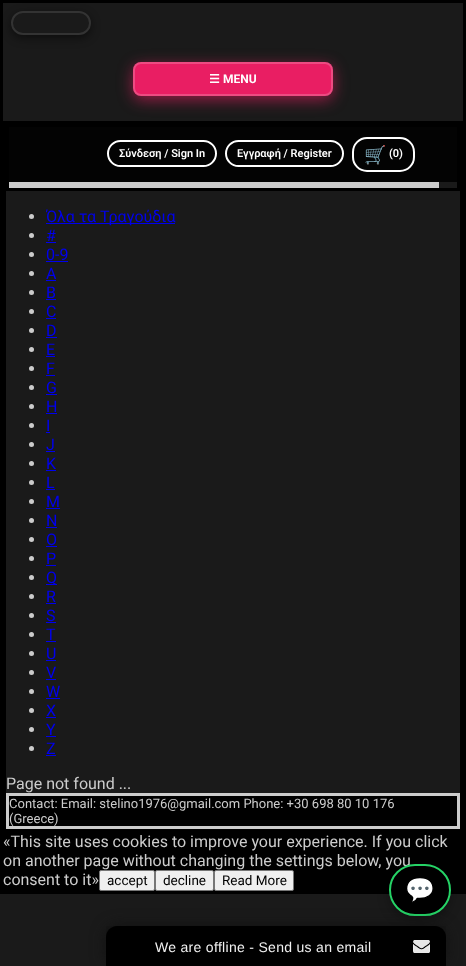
<svg xmlns="http://www.w3.org/2000/svg" width="466" height="966">
<style>
.a{font:bold 12px DejaVu Sans;fill:#fff}
.b{font:bold 12px Roboto;fill:#fff}
.c{font:600 11px Roboto;fill:#fff}
.d{font:bold 18px Noto Color Emoji;fill:#fff}
.e{font:16px Roboto;fill:#00e}
.f{font:16px Roboto;fill:#ccc}
.g{font:13px Roboto;fill:#ccc}
.h{font:13.5px Roboto;fill:#000}
.i{font:bold 24px Noto Color Emoji;fill:#fff}
.j{font:14px Liberation Sans;letter-spacing:0.3px;fill:#f1f1f1}
</style>
<rect width="100%" height="100%" fill="#1a1a1a"/>
<path fill="none" stroke="#000" stroke-width="3" d="M1.5 1.5h463v891H1.5z"/>
<rect fill="#00000080" filter="blur(5px)" x="11" y="14" width="80" height="24" rx="12"/>
<rect fill="#1a1a1a" stroke="#333" stroke-width="2" x="12" y="12" width="78" height="22" rx="11"/>
<path fill="none" stroke="#000" stroke-width="3" d="M4.5 122.5h457v708H4.5z"/>
<rect fill="#e91e6399" filter="blur(7.5px)" x="133" y="66" width="200" height="34" rx="8"/>
<rect fill="#e91e63" x="133" y="62" width="200" height="34" rx="8"/>
<rect fill="none" stroke="#ffffff33" stroke-width="2" x="134" y="63" width="198" height="32" rx="7"/>
<path fill="none" stroke="#000" stroke-width="3" d="M7.5 125.5h451v64H7.5z"/>
<path fill="#030303" d="M9 127h448v55H9z"/>
<rect fill="none" stroke="#fff" stroke-width="2" x="108" y="141" width="108" height="25" rx="12.5"/>
<rect fill="none" stroke="#fff" stroke-width="2" x="226" y="141" width="117" height="25" rx="12.5"/>
<rect fill="none" stroke="#fff" stroke-width="2" x="353" y="138" width="61" height="33" rx="14"/>
<path fill="#ccc" d="M9 182h430v6H9z"/>
<circle fill="#ccc" cx="31.5" cy="216.5" r="2.5"/>
<path fill="#00e" d="M46 223h129v1H46z"/>
<circle fill="#ccc" cx="31.5" cy="235.5" r="2.5"/>
<path fill="#00e" d="M46 242h10v1H46z"/>
<circle fill="#ccc" cx="31.5" cy="254.5" r="2.5"/>
<path fill="#00e" d="M46 261h22v1H46z"/>
<circle fill="#ccc" cx="31.5" cy="273.5" r="2.5"/>
<path fill="#00e" d="M46 280h10v1H46z"/>
<circle fill="#ccc" cx="31.5" cy="292.5" r="2.5"/>
<path fill="#00e" d="M46 299h10v1H46z"/>
<circle fill="#ccc" cx="31.5" cy="311.5" r="2.5"/>
<path fill="#00e" d="M46 318h10v1H46z"/>
<circle fill="#ccc" cx="31.5" cy="330.5" r="2.5"/>
<path fill="#00e" d="M46 337h11v1H46z"/>
<circle fill="#ccc" cx="31.5" cy="349.5" r="2.5"/>
<path fill="#00e" d="M46 356h9v1H46z"/>
<circle fill="#ccc" cx="31.5" cy="368.5" r="2.5"/>
<path fill="#00e" d="M46 375h9v1H46z"/>
<circle fill="#ccc" cx="31.5" cy="387.5" r="2.5"/>
<path fill="#00e" d="M46 394h11v1H46z"/>
<circle fill="#ccc" cx="31.5" cy="406.5" r="2.5"/>
<path fill="#00e" d="M46 413h11v1H46z"/>
<circle fill="#ccc" cx="31.5" cy="425.5" r="2.5"/>
<path fill="#00e" d="M46 432h4v1H46z"/>
<circle fill="#ccc" cx="31.5" cy="444.5" r="2.5"/>
<path fill="#00e" d="M46 451h9v1H46z"/>
<circle fill="#ccc" cx="31.5" cy="463.5" r="2.5"/>
<path fill="#00e" d="M46 470h10v1H46z"/>
<circle fill="#ccc" cx="31.5" cy="482.5" r="2.5"/>
<path fill="#00e" d="M46 489h9v1H46z"/>
<circle fill="#ccc" cx="31.5" cy="501.5" r="2.5"/>
<path fill="#00e" d="M46 508h14v1H46z"/>
<circle fill="#ccc" cx="31.5" cy="520.5" r="2.5"/>
<path fill="#00e" d="M46 527h11v1H46z"/>
<circle fill="#ccc" cx="31.5" cy="539.5" r="2.5"/>
<path fill="#00e" d="M46 546h11v1H46z"/>
<circle fill="#ccc" cx="31.5" cy="558.5" r="2.5"/>
<path fill="#00e" d="M46 565h10v1H46z"/>
<circle fill="#ccc" cx="31.5" cy="577.5" r="2.5"/>
<path fill="#00e" d="M46 584h11v1H46z"/>
<circle fill="#ccc" cx="31.5" cy="596.5" r="2.5"/>
<path fill="#00e" d="M46 603h10v1H46z"/>
<circle fill="#ccc" cx="31.5" cy="615.5" r="2.5"/>
<path fill="#00e" d="M46 622h10v1H46z"/>
<circle fill="#ccc" cx="31.5" cy="634.5" r="2.5"/>
<path fill="#00e" d="M46 641h10v1H46z"/>
<circle fill="#ccc" cx="31.5" cy="653.5" r="2.5"/>
<path fill="#00e" d="M46 660h10v1H46z"/>
<circle fill="#ccc" cx="31.5" cy="672.5" r="2.5"/>
<path fill="#00e" d="M46 679h10v1H46z"/>
<circle fill="#ccc" cx="31.5" cy="691.5" r="2.5"/>
<path fill="#00e" d="M46 698h14v1H46z"/>
<circle fill="#ccc" cx="31.5" cy="710.5" r="2.5"/>
<path fill="#00e" d="M46 717h10v1H46z"/>
<circle fill="#ccc" cx="31.5" cy="729.5" r="2.5"/>
<path fill="#00e" d="M46 736h10v1H46z"/>
<circle fill="#ccc" cx="31.5" cy="748.5" r="2.5"/>
<path fill="#00e" d="M46 755h10v1H46z"/>
<path fill="#000" stroke="#ccc" stroke-width="3" d="M7.5 794.5h451v33H7.5z"/>
<path fill="#000" d="M3 832h460v59H3z"/>
<rect fill="#efefef" stroke="#767676" x="99.5" y="870.5" width="55" height="20" rx="1.5"/>
<rect fill="#efefef" stroke="#767676" x="155.5" y="870.5" width="58" height="20" rx="1.5"/>
<rect fill="#efefef" stroke="#767676" x="214.5" y="870.5" width="79" height="20" rx="1.5"/>
<rect fill="#0000004d" filter="blur(6px)" x="389" y="868" width="62" height="52" rx="26"/>
<text class="a" x="209" y="83">☰</text>
<text class="b" x="223" y="83">MENU</text>
<text class="c" x="119" y="157">Σύνδεση / Sign In</text>
<text class="c" x="237" y="157">Εγγραφή / Register</text>
<text class="d" x="364" y="161">🛒</text>
<text class="c" x="389" y="157">(0)</text>
<text class="e" x="46" y="222">Όλα τα Τραγούδια</text>
<text class="e" x="46" y="241">#</text>
<text class="e" x="46" y="260">0-9</text>
<text class="e" x="46" y="279">A</text>
<text class="e" x="46" y="298">B</text>
<text class="e" x="46" y="317">C</text>
<text class="e" x="46" y="336">D</text>
<text class="e" x="46" y="355">E</text>
<text class="e" x="46" y="374">F</text>
<text class="e" x="46" y="393">G</text>
<text class="e" x="46" y="412">H</text>
<text class="e" x="46" y="431">I</text>
<text class="e" x="46" y="450">J</text>
<text class="e" x="46" y="469">K</text>
<text class="e" x="46" y="488">L</text>
<text class="e" x="46" y="507">M</text>
<text class="e" x="46" y="526">N</text>
<text class="e" x="46" y="545">O</text>
<text class="e" x="46" y="564">P</text>
<text class="e" x="46" y="583">Q</text>
<text class="e" x="46" y="602">R</text>
<text class="e" x="46" y="621">S</text>
<text class="e" x="46" y="640">T</text>
<text class="e" x="46" y="659">U</text>
<text class="e" x="46" y="678">V</text>
<text class="e" x="46" y="697">W</text>
<text class="e" x="46" y="716">X</text>
<text class="e" x="46" y="735">Y</text>
<text class="e" x="46" y="754">Z</text>
<text class="f" x="6" y="789">Page not found ...</text>
<text class="g" x="9" y="808">Contact: Email: stelino1976@gmail.com Phone: +30 698 80 10 176</text>
<text class="g" x="9" y="823">(Greece)</text>
<text class="f" x="3" y="847">«This site uses cookies to improve your experience. If you click</text>
<text class="f" x="3" y="866">on another page without changing the settings below, you</text>
<text class="f" x="3" y="885">consent to it»</text>
<text class="h" x="107" y="885">accept</text>
<text class="h" x="163" y="885">decline</text>
<text class="h" x="222" y="885">Read More</text>
<rect fill="#000" stroke="#25d366" stroke-width="2" x="390" y="865" width="60" height="50" rx="25"/>
<text class="i" x="405" y="898">💬</text>
<rect fill="#111" filter="blur(7.5px)" x="106" y="926" width="340" height="40" rx="13"/>
<image href="1.png" x="106" y="926" width="340" height="11"/>
<path fill="#000" d="M117 926h318c6 0 11 5 11 11v29h-340v-29c0-6 5-11 11-11z"/>
<text class="j" x="155" y="952">We are offline - Send us an email</text>
<image href="2.png" x="413" y="940" width="17" height="13"/>
</svg>
